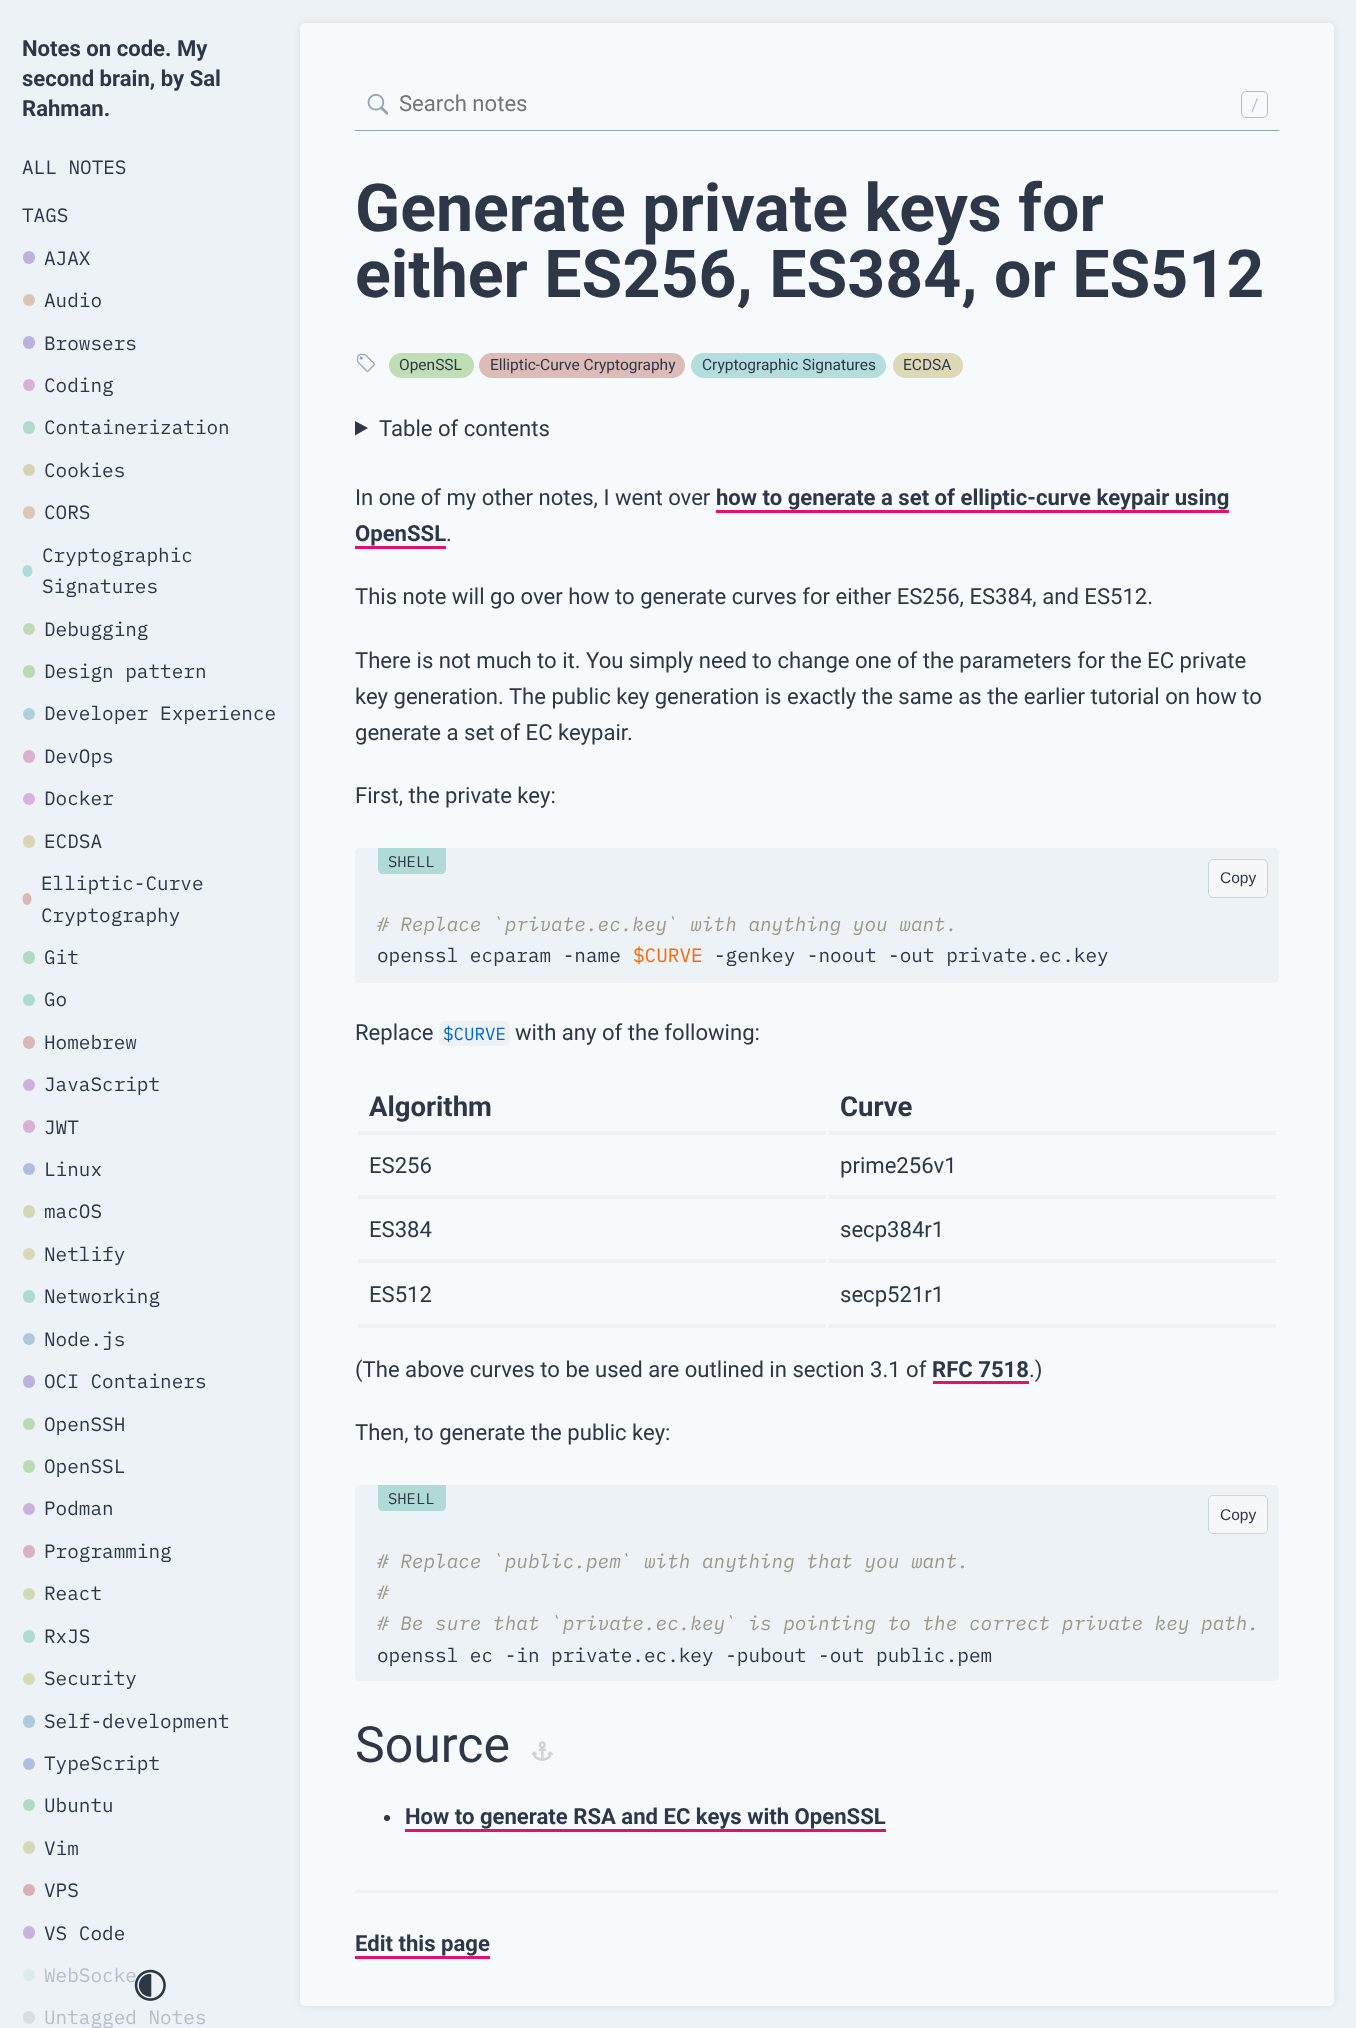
<svg xmlns="http://www.w3.org/2000/svg" width="1356" height="2028">
<style>
.a{font:bold 22.1px Roboto;fill:#2d3748}
.b{font:19.35px IBM Plex Mono;fill:#2d3748}
.c{font:19.35px IBM Plex Mono;fill:#b7bec6}
.d{font:22.1px Roboto;fill:#757575}
.e{font:15.5px IBM Plex Mono;fill:#b0bccd}
.f{font:bold 66.25px Roboto;fill:#2d3748}
.g{font:15.5px Roboto;fill:#2d3748}
.h{font:22.1px Roboto;fill:#2d3748}
.i{font:15.5px IBM Plex Mono;fill:#2d3748}
.j{font:15.5px Liberation Sans;fill:#2d3748}
.k{font:italic 19.35px IBM Plex Mono;fill:#998}
.l{font:19.35px IBM Plex Mono;fill:#f66a0a}
.m{font:17.5px IBM Plex Mono;fill:#0366d6}
.n{font:bold 27.5px Roboto;fill:#2d3748}
.o{font:50px Roboto;fill:#2d3748}
</style>
<rect width="100%" height="100%" fill="#edf2f7"/>
<rect fill="#bfb1dd" x="23" y="251" width="12" height="13" rx="6"/>
<circle fill="#d8c6b4" cx="29" cy="300" r="6"/>
<rect fill="#bab1dd" x="23" y="336" width="12" height="13" rx="6"/>
<circle fill="#d8b1d5" cx="29" cy="385" r="6"/>
<rect fill="#afdacc" x="23" y="421" width="12" height="13" rx="6"/>
<circle fill="#d8d2b4" cx="29" cy="470" r="6"/>
<rect fill="#d8c8b4" x="23" y="506" width="12" height="13" rx="6"/>
<ellipse fill="#afdadb" cx="27.5" cy="571" rx="5" ry="6"/>
<circle fill="#bfdab4" cx="29" cy="629" r="6"/>
<rect fill="#b9dab4" x="23" y="665" width="12" height="13" rx="6"/>
<circle fill="#afcfdd" cx="29" cy="714" r="6"/>
<rect fill="#d8b1ce" x="23" y="750" width="12" height="13" rx="6"/>
<circle fill="#d8b1dd" cx="29" cy="799" r="6"/>
<rect fill="#d8d4b4" x="23" y="835" width="12" height="13" rx="6"/>
<ellipse fill="#d8b7b4" cx="27" cy="899" rx="4.5" ry="6"/>
<rect fill="#afdabb" x="23" y="951" width="12" height="13" rx="6"/>
<circle fill="#afdad4" cx="29" cy="1000" r="6"/>
<rect fill="#d8b8b4" x="23" y="1036" width="12" height="13" rx="6"/>
<circle fill="#ccb1dd" cx="29" cy="1085" r="6"/>
<rect fill="#d8b1d4" x="23" y="1120" width="12" height="13" rx="6"/>
<circle fill="#afbcdd" cx="29" cy="1169" r="6"/>
<rect fill="#d1dab4" x="23" y="1205" width="12" height="13" rx="6"/>
<circle fill="#d8d8b4" cx="29" cy="1254" r="6"/>
<rect fill="#afdad4" x="23" y="1290" width="12" height="13" rx="6"/>
<circle fill="#afc8dd" cx="29" cy="1339" r="6"/>
<rect fill="#bbb1dd" x="23" y="1375" width="12" height="13" rx="6"/>
<circle fill="#badab4" cx="29" cy="1424" r="6"/>
<rect fill="#badab4" x="23" y="1460" width="12" height="13" rx="6"/>
<circle fill="#cdb1dd" cx="29" cy="1509" r="6"/>
<rect fill="#d8b1c3" x="23" y="1545" width="12" height="13" rx="6"/>
<circle fill="#cfdab4" cx="29" cy="1594" r="6"/>
<rect fill="#afdad4" x="23" y="1630" width="12" height="13" rx="6"/>
<circle fill="#d8dab4" cx="29" cy="1679" r="6"/>
<rect fill="#afcadd" x="23" y="1715" width="12" height="13" rx="6"/>
<circle fill="#afbedd" cx="29" cy="1764" r="6"/>
<circle fill="#afdac5" cx="29" cy="1805" r="6"/>
<rect fill="#d2dab4" x="23" y="1841" width="12" height="13" rx="6"/>
<circle fill="#d8b1b6" cx="29" cy="1890" r="6"/>
<rect fill="#c9b1dd" x="23" y="1926" width="12" height="13" rx="6"/>
<circle fill="#dcebea" cx="29" cy="1975" r="6"/>
<rect fill="#dadee1" x="23" y="2011" width="12" height="13" rx="6"/>
<rect fill="#0000001a" filter="blur(4px)" x="301" y="24" width="1032" height="1981" rx="4"/>
<rect fill="#f7fafc" x="300" y="23" width="1034" height="1983" rx="5"/>
<image href="2.png" x="367" y="94" width="22" height="21"/>
<path fill="#92a2b9" d="M355 130h924v1H355z"/>
<rect fill="none" stroke="#b0bccd" x="1241.5" y="91.5" width="26" height="26" rx="4.5"/>
<image href="3.png" x="357" y="353" width="19" height="19"/>
<rect fill="#bfdeb6" x="389" y="353" width="85" height="25" rx="12.5"/>
<rect fill="#ddbbb6" x="479" y="353" width="206" height="25" rx="12.5"/>
<rect fill="#b4dedd" x="691" y="353" width="195" height="25" rx="12.5"/>
<rect fill="#ddd8b6" x="893" y="353" width="70" height="25" rx="12.5"/>
<path fill="#2d3748" d="M355 421l13 7l-13 7.5z"/>
<path fill="#e4116c" d="M716 510h513v3H716z"/>
<path fill="#e4116c" d="M355 546h91v3H355z"/>
<path fill="#edf2f7" d="M360 848h914c3 0 5 2 5 5v45h-924v-45c0-3 2-5 5-5z"/>
<path fill="#afdad5" d="M378 848h68v21c0 3-2 5-5 5h-58c-3 0-5-2-5-5z"/>
<rect fill="#f5f7f9" stroke="#c9d5de" x="1208.5" y="859.5" width="59" height="38" rx="4.5"/>
<path fill="#edf2f7" d="M355 898h924v80c0 3-2 5-5 5h-914c-3 0-5-2-5-5z"/>
<rect fill="#edf2f7" x="439" y="1021" width="71" height="25" rx="5"/>
<path fill="#edf2f7" d="M358 1131h468v4H358z"/>
<path fill="#edf2f7" d="M829 1131h447v4H829z"/>
<path fill="#edf2f7" d="M358 1195h468v4H358z"/>
<path fill="#edf2f7" d="M829 1195h447v4H829z"/>
<path fill="#edf2f7" d="M358 1259h468v4H358z"/>
<path fill="#edf2f7" d="M829 1259h447v4H829z"/>
<path fill="#edf2f7" d="M358 1324h468v4H358z"/>
<path fill="#edf2f7" d="M829 1324h447v4H829z"/>
<path fill="#e4116c" d="M933 1381h96v3H933z"/>
<path fill="#edf2f7" d="M360 1485h914c3 0 5 2 5 5v44h-924v-44c0-3 2-5 5-5z"/>
<path fill="#afdad5" d="M378 1485h68v21c0 3-2 5-5 5h-58c-3 0-5-2-5-5z"/>
<rect fill="#f5f7f9" stroke="#c9d5de" x="1208.5" y="1495.5" width="59" height="38" rx="4.5"/>
<path fill="#edf2f7" d="M355 1534h924v142c0 3-2 5-5 5h-914c-3 0-5-2-5-5z"/>
<image href="4.png" x="531" y="1741" width="23" height="20"/>
<circle fill="#2d3748" cx="387" cy="1818" r="3"/>
<path fill="#e4116c" d="M405 1829h481v3H405z"/>
<path fill="#edf2f7" d="M355 1890h924v3H355z"/>
<path fill="#e4116c" d="M355 1956h135v3H355z"/>
<text class="a" x="22" y="56">Notes on code. My</text>
<text class="a" x="22" y="86">second brain, by Sal</text>
<text class="a" x="22" y="116">Rahman.</text>
<text class="b" x="22" y="174">ALL NOTES</text>
<text class="b" x="22" y="222">TAGS</text>
<text class="b" x="44" y="265">AJAX</text>
<text class="b" x="44" y="307">Audio</text>
<text class="b" x="44" y="350">Browsers</text>
<text class="b" x="44" y="392">Coding</text>
<text class="b" x="44" y="434">Containerization</text>
<text class="b" x="44" y="477">Cookies</text>
<text class="b" x="44" y="519">CORS</text>
<text class="b" x="42" y="562">Cryptographic</text>
<text class="b" x="42" y="593">Signatures</text>
<text class="b" x="44" y="636">Debugging</text>
<text class="b" x="44" y="678">Design pattern</text>
<text class="b" x="44" y="720">Developer Experience</text>
<text class="b" x="44" y="763">DevOps</text>
<text class="b" x="44" y="805">Docker</text>
<text class="b" x="44" y="848">ECDSA</text>
<text class="b" x="41" y="890">Elliptic-Curve</text>
<text class="b" x="41" y="922">Cryptography</text>
<text class="b" x="44" y="964">Git</text>
<text class="b" x="44" y="1006">Go</text>
<text class="b" x="44" y="1049">Homebrew</text>
<text class="b" x="44" y="1091">JavaScript</text>
<text class="b" x="44" y="1134">JWT</text>
<text class="b" x="44" y="1176">Linux</text>
<text class="b" x="44" y="1218">macOS</text>
<text class="b" x="44" y="1261">Netlify</text>
<text class="b" x="44" y="1303">Networking</text>
<text class="b" x="44" y="1346">Node.js</text>
<text class="b" x="44" y="1388">OCI Containers</text>
<text class="b" x="44" y="1431">OpenSSH</text>
<text class="b" x="44" y="1473">OpenSSL</text>
<text class="b" x="44" y="1515">Podman</text>
<text class="b" x="44" y="1558">Programming</text>
<text class="b" x="44" y="1600">React</text>
<text class="b" x="44" y="1643">RxJS</text>
<text class="b" x="44" y="1685">Security</text>
<text class="b" x="44" y="1728">Self-development</text>
<text class="b" x="44" y="1770">TypeScript</text>
<text class="b" x="44" y="1812">Ubuntu</text>
<text class="b" x="44" y="1855">Vim</text>
<text class="b" x="44" y="1897">VPS</text>
<text class="b" x="44" y="1940">VS Code</text>
<text class="c" x="44" y="1982">WebSocke</text>
<text class="c" x="44" y="2024">Untagged Notes</text>
<image href="1.png" x="134" y="1969" width="32" height="32"/>
<text class="d" x="399" y="111">Search notes</text>
<text class="e" x="1250" y="110">/</text>
<text class="f" x="355" y="231">Generate private keys for</text>
<text class="f" x="355" y="297">either ES256, ES384, or ES512</text>
<text class="g" x="399" y="370">OpenSSL</text>
<text class="g" x="490" y="370">Elliptic-Curve Cryptography</text>
<text class="g" x="702" y="370">Cryptographic Signatures</text>
<text class="g" x="903" y="370">ECDSA</text>
<text class="h" x="379" y="436">Table of contents</text>
<text class="h" x="355" y="505">In one of my other notes, I went over</text>
<text class="a" x="716" y="505">how to generate a set of elliptic-curve keypair using</text>
<text class="a" x="355" y="541">OpenSSL</text>
<text class="h" x="446" y="541">.</text>
<text class="h" x="355" y="604">This note will go over how to generate curves for either ES256, ES384, and ES512.</text>
<text class="h" x="355" y="668">There is not much to it. You simply need to change one of the parameters for the EC private</text>
<text class="h" x="355" y="704">key generation. The public key generation is exactly the same as the earlier tutorial on how to</text>
<text class="h" x="355" y="740">generate a set of EC keypair.</text>
<text class="h" x="355" y="803">First, the private key:</text>
<text class="i" x="388" y="867">SHELL</text>
<text class="j" x="1220" y="883">Copy</text>
<text class="k" x="377" y="931"># Replace `private.ec.key` with anything you want.</text>
<text class="b" x="377" y="962">openssl ecparam -name</text>
<text class="l" x="633" y="962">$CURVE</text>
<text class="b" x="714" y="962">-genkey -noout -out private.ec.key</text>
<text class="h" x="355" y="1040">Replace</text>
<text class="m" x="443" y="1040">$CURVE</text>
<text class="h" x="515" y="1040">with any of the following:</text>
<text class="n" x="369" y="1116">Algorithm</text>
<text class="n" x="840" y="1116">Curve</text>
<text class="h" x="369" y="1173">ES256</text>
<text class="h" x="840" y="1173">prime256v1</text>
<text class="h" x="369" y="1237">ES384</text>
<text class="h" x="840" y="1237">secp384r1</text>
<text class="h" x="369" y="1302">ES512</text>
<text class="h" x="840" y="1302">secp521r1</text>
<text class="h" x="355" y="1377">(The above curves to be used are outlined in section 3.1 of</text>
<text class="a" x="932" y="1377">RFC 7518</text>
<text class="h" x="1029" y="1377">.)</text>
<text class="h" x="355" y="1440">Then, to generate the public key:</text>
<text class="i" x="388" y="1504">SHELL</text>
<text class="j" x="1220" y="1520">Copy</text>
<text class="k" x="377" y="1568"># Replace `public.pem` with anything that you want.</text>
<text class="k" x="377" y="1599">#</text>
<text class="k" x="377" y="1630"># Be sure that `private.ec.key` is pointing to the correct private key path.</text>
<text class="b" x="377" y="1662">openssl ec -in private.ec.key -pubout -out public.pem</text>
<text class="o" x="355" y="1762">Source</text>
<text class="a" x="405" y="1824">How to generate RSA and EC keys with OpenSSL</text>
<text class="a" x="355" y="1951">Edit this page</text>
</svg>
